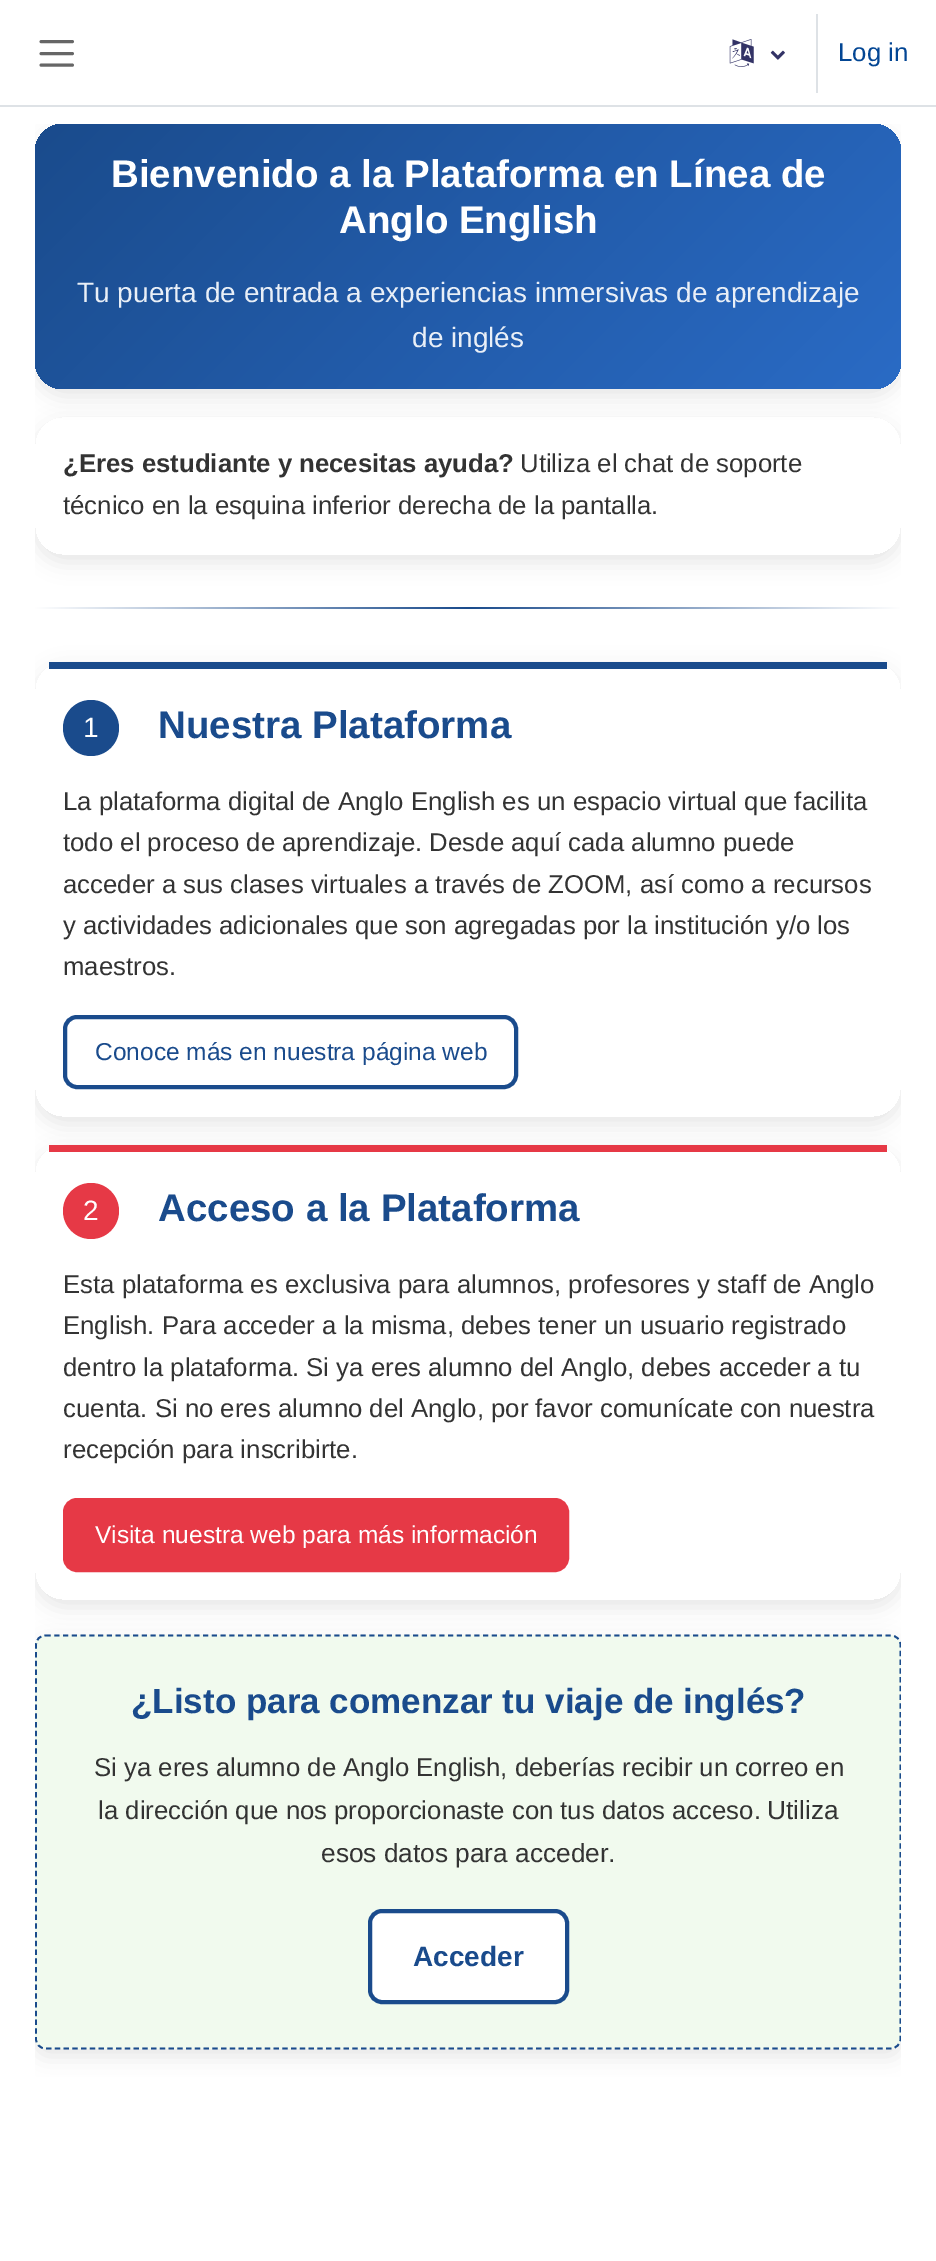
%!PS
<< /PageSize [936 2261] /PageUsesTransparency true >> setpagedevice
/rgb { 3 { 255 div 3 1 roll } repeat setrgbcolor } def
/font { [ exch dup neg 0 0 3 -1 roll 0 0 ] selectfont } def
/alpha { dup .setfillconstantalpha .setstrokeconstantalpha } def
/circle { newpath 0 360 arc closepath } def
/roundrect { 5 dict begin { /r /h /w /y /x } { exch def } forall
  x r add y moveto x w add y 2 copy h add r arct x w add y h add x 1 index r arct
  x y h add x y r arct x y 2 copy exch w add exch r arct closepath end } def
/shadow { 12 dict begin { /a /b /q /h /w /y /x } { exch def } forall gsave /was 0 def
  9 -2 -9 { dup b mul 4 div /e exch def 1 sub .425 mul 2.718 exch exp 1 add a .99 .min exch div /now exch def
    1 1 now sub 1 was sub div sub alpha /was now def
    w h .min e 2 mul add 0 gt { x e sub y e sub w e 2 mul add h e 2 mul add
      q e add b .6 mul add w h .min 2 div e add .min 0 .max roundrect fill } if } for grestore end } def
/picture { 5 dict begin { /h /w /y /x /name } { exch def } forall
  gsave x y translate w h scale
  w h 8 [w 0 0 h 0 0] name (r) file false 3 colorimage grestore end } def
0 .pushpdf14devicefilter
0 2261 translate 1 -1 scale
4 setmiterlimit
255 255 255 rgb
0 0 936 2261 rectfill
gsave
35 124 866 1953 rectclip
0 0 0 rgb
35 131 866 265 28 10.5 0.1 shadow
grestore
222 226 230 rgb
0 105 936 2 rectfill
102 102 102 rgb
2.9 setlinewidth
1 setlinecap
41 41.5 moveto 72.5 41.5 lineto 41 53.5 moveto 72.5 53.5 lineto 41 65 moveto 72.5 65 lineto stroke
(img/1.rgb) 729 39 25 28 picture
(img/2.rgb) 770 50 15 10 picture
222 226 230 rgb
816 14 2 79 rectfill
gsave 35 124 866 265 28 roundrect clip newpath
<< /ShadingType 2 /ColorSpace /DeviceRGB /Coords [185 -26 751 539] /Extend [true true] /Function << /FunctionType 2 /Domain [0 1] /C0 [0.102 0.294 0.549] /C1 [0.165 0.42 0.773] /N 1 >> >> shfill grestore
gsave
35 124 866 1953 rectclip
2 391 moveto 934 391 lineto 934 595 lineto 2 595 lineto closepath 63 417 moveto 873 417 lineto 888.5 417 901 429.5 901 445 curveto 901 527 lineto 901 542.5 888.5 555 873 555 curveto 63 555 lineto 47.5 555 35 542.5 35 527 curveto 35 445 lineto 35 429.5 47.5 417 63 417 curveto closepath eoclip newpath
0 0 0 rgb
35 424 866 138 28 10.5 0.1 shadow
grestore
gsave 35 607 moveto 901 607 lineto 901 609 lineto 35 609 lineto closepath clip newpath
<< /ShadingType 2 /ColorSpace /DeviceRGB /Coords [35 608 901 608] /Extend [true true] /Function << /FunctionType 3 /Domain [0 1] /Functions [<< /FunctionType 2 /Domain [0 1] /C0 [1 1 1] /C1 [0.102 0.294 0.549] /N 1 >> << /FunctionType 2 /Domain [0 1] /C0 [0.102 0.294 0.549] /C1 [1 1 1] /N 1 >>] /Bounds [0.5] /Encode [0 1 0 1] >> >> shfill grestore
gsave
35 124 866 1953 rectclip
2 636 moveto 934 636 lineto 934 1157 lineto 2 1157 lineto closepath 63 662 moveto 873 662 lineto 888.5 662 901 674.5 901 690 curveto 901 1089 lineto 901 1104.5 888.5 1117 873 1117 curveto 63 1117 lineto 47.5 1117 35 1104.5 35 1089 curveto 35 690 lineto 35 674.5 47.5 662 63 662 curveto closepath eoclip newpath
0 0 0 rgb
35 669 866 455 28 10.5 0.1 shadow
grestore
26 75 140 rgb
49 662 838 7 rectfill
91 728 28 circle fill
4 setlinewidth
0 setlinecap
65 1017 451 70 12 roundrect stroke
gsave
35 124 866 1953 rectclip
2 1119 moveto 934 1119 lineto 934 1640 lineto 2 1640 lineto closepath 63 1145 moveto 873 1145 lineto 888.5 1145 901 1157.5 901 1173 curveto 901 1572 lineto 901 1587.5 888.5 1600 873 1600 curveto 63 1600 lineto 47.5 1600 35 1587.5 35 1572 curveto 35 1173 lineto 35 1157.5 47.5 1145 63 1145 curveto closepath eoclip newpath
0 0 0 rgb
35 1152 866 455 28 10.5 0.1 shadow
grestore
230 57 70 rgb
49 1145 838 7 rectfill
91 1211 28 circle fill
65 1500 502 70 12 roundrect gsave fill grestore
stroke
gsave
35 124 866 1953 rectclip
0 0 0 rgb
35 1642 866 414 11 10.5 0.1 shadow
grestore
241 250 238 rgb
35 1635 866 414 11 roundrect fill
gsave
35 124 866 1953 rectclip
26 75 140 rgb
1.8 setlinewidth
[5.25 3.5] 0 setdash
45.5 1635.5 moveto 891 1635.5 lineto 896 1635.5 900.5 1639.5 900.5 1645 curveto 900.5 2039 lineto 900.5 2044 896 2048.5 891 2048.5 curveto 45.5 2048.5 lineto 40 2048.5 36 2044 36 2039 curveto 36 1645 lineto 36 1639.5 40 1635.5 45.5 1635.5 curveto closepath stroke
grestore
255 255 255 rgb
370 1911 197 91 12 roundrect gsave fill grestore
26 75 140 rgb
stroke
/LiberationSans-Regular 25.75 font
3 70 148 rgb
838 61 moveto (Log in) show
/LiberationSans-Bold 38.5 font
255 255 255 rgb
111 187 moveto (Bienvenido a la Plataforma en Línea de) show
339 233 moveto (Anglo English) show
/LiberationSans-Regular 28 font
233 239 247 rgb
77 302 moveto (Tu puerta de entrada a experiencias inmersivas de aprendizaje) show
412 347 moveto (de inglés) show
/LiberationSans-Bold 25.75 font
51 51 51 rgb
63 472 moveto (¿Eres estudiante y necesitas ayuda?) show
/LiberationSans-Regular 25.75 font
520 472 moveto (Utiliza el chat de soporte) show
63 514 moveto (técnico en la esquina inferior derecha de la pantalla.) show
/LiberationSans-Regular 28 font
255 255 255 rgb
83 737 moveto (1) show
/LiberationSans-Bold 38.5 font
26 75 140 rgb
158 738 moveto (Nuestra Plataforma) show
/LiberationSans-Regular 25.75 font
51 51 51 rgb
[
  [(La plataforma digital de Anglo English es un espacio virtual que facilita) 63 810]
  [(todo el proceso de aprendizaje. Desde aquí cada alumno puede) 63 851]
  [(acceder a sus clases virtuales a través de ZOOM, así como a recursos) 63 893]
  [(y actividades adicionales que son agregadas por la institución y/o los) 63 934]
  [(maestros.) 63 975]
] { aload pop moveto show } forall
/LiberationSans-Regular 24.5 font
26 75 140 rgb
95 1060 moveto (Conoce más en nuestra página web) show
/LiberationSans-Regular 28 font
255 255 255 rgb
83 1220 moveto (2) show
/LiberationSans-Bold 38.5 font
26 75 140 rgb
158 1221 moveto (Acceso a la Plataforma) show
/LiberationSans-Regular 25.75 font
51 51 51 rgb
[
  [(Esta plataforma es exclusiva para alumnos, profesores y staff de Anglo) 63 1293]
  [(English. Para acceder a la misma, debes tener un usuario registrado) 63 1334]
  [(dentro la plataforma. Si ya eres alumno del Anglo, debes acceder a tu) 63 1376]
  [(cuenta. Si no eres alumno del Anglo, por favor comunícate con nuestra) 63 1417]
  [(recepción para inscribirte.) 63 1458]
] { aload pop moveto show } forall
/LiberationSans-Regular 24.5 font
255 255 255 rgb
95 1543 moveto (Visita nuestra web para más información) show
/LiberationSans-Bold 35 font
26 75 140 rgb
131 1713 moveto (¿Listo para comenzar tu viaje de inglés?) show
/LiberationSans-Regular 25.75 font
51 51 51 rgb
94 1776 moveto (Si ya eres alumno de Anglo English, deberías recibir un correo en) show
98 1819 moveto (la dirección que nos proporcionaste con tus datos acceso.) show
/LiberationSans-Regular 26.25 font
767 1819 moveto (Utiliza) show
321 1862 moveto (esos datos para acceder.) show
/LiberationSans-Bold 28 font
26 75 140 rgb
413 1966 moveto (Acceder) show
.poppdf14devicefilter showpage
